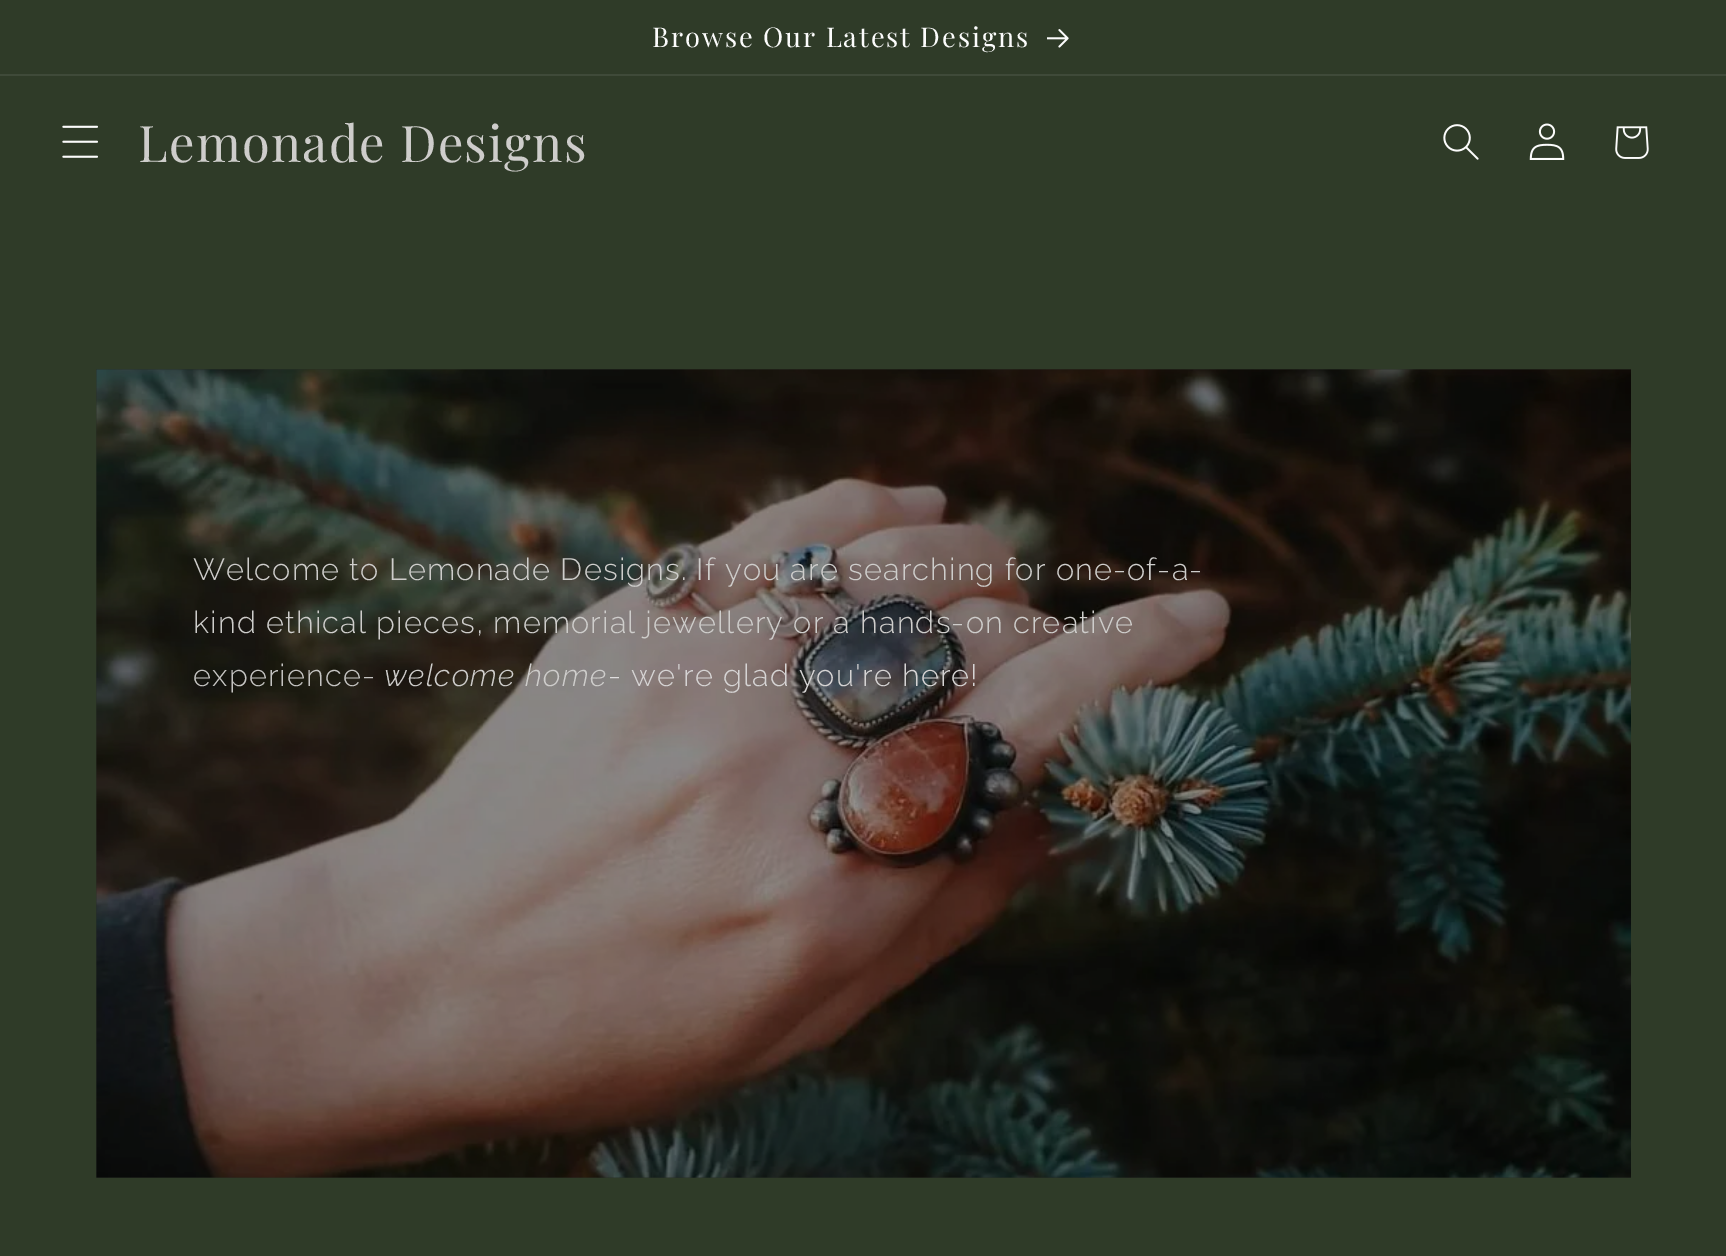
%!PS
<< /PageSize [1726 1256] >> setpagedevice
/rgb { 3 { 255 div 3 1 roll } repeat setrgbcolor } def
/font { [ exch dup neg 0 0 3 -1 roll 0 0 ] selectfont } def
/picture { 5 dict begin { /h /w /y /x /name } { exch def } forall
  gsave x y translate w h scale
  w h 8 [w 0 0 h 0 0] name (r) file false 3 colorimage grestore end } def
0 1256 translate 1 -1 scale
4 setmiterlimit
47 59 40 rgb
0 0 1726 1256 rectfill
63 74 57 rgb
0 74 1726 2 rectfill
(img/1.rgb) 1047 29 22 19 picture
(img/2.rgb) 62 125 36 33 picture
(img/3.rgb) 1443 124 36 36 picture
(img/4.rgb) 1529 123 36 37 picture
(img/5.rgb) 1615 126 34 33 picture
41 47 37 rgb
96 369 1535 809 rectfill
(img/6.rgb) 96 369 1535 809 picture
/PlayfairDisplay-Regular 27.25 font
252 252 252 rgb
652 47 moveto 1.9 0 (Browse Our Latest Designs) ashow
/PlayfairDisplay-Regular 50.5 font
206 205 203 rgb
138 162 moveto 1.25 0 (Lemonade Designs) ashow
/Raleway-Light 30.8 font
193 580 moveto 1.15 0 (Welcome to Lemonade Designs. If you are searching for one-of-a-) ashow
193 633 moveto 1.15 0 (kind ethical pieces, memorial jewellery or a hands-on creative) ashow
196 195 193 rgb
193 686 moveto 1.15 0 (experience-) ashow
/Raleway-LightItalic 30.8 font
206 205 203 rgb
384 686 moveto 1.15 0 (welcome home) ashow
/Raleway-Light 30.8 font
223 222 222 rgb
608 686 moveto 1.15 0 (-) ashow
214 212 212 rgb
631 686 moveto 1.15 0 (we're glad you're here!) ashow
showpage
